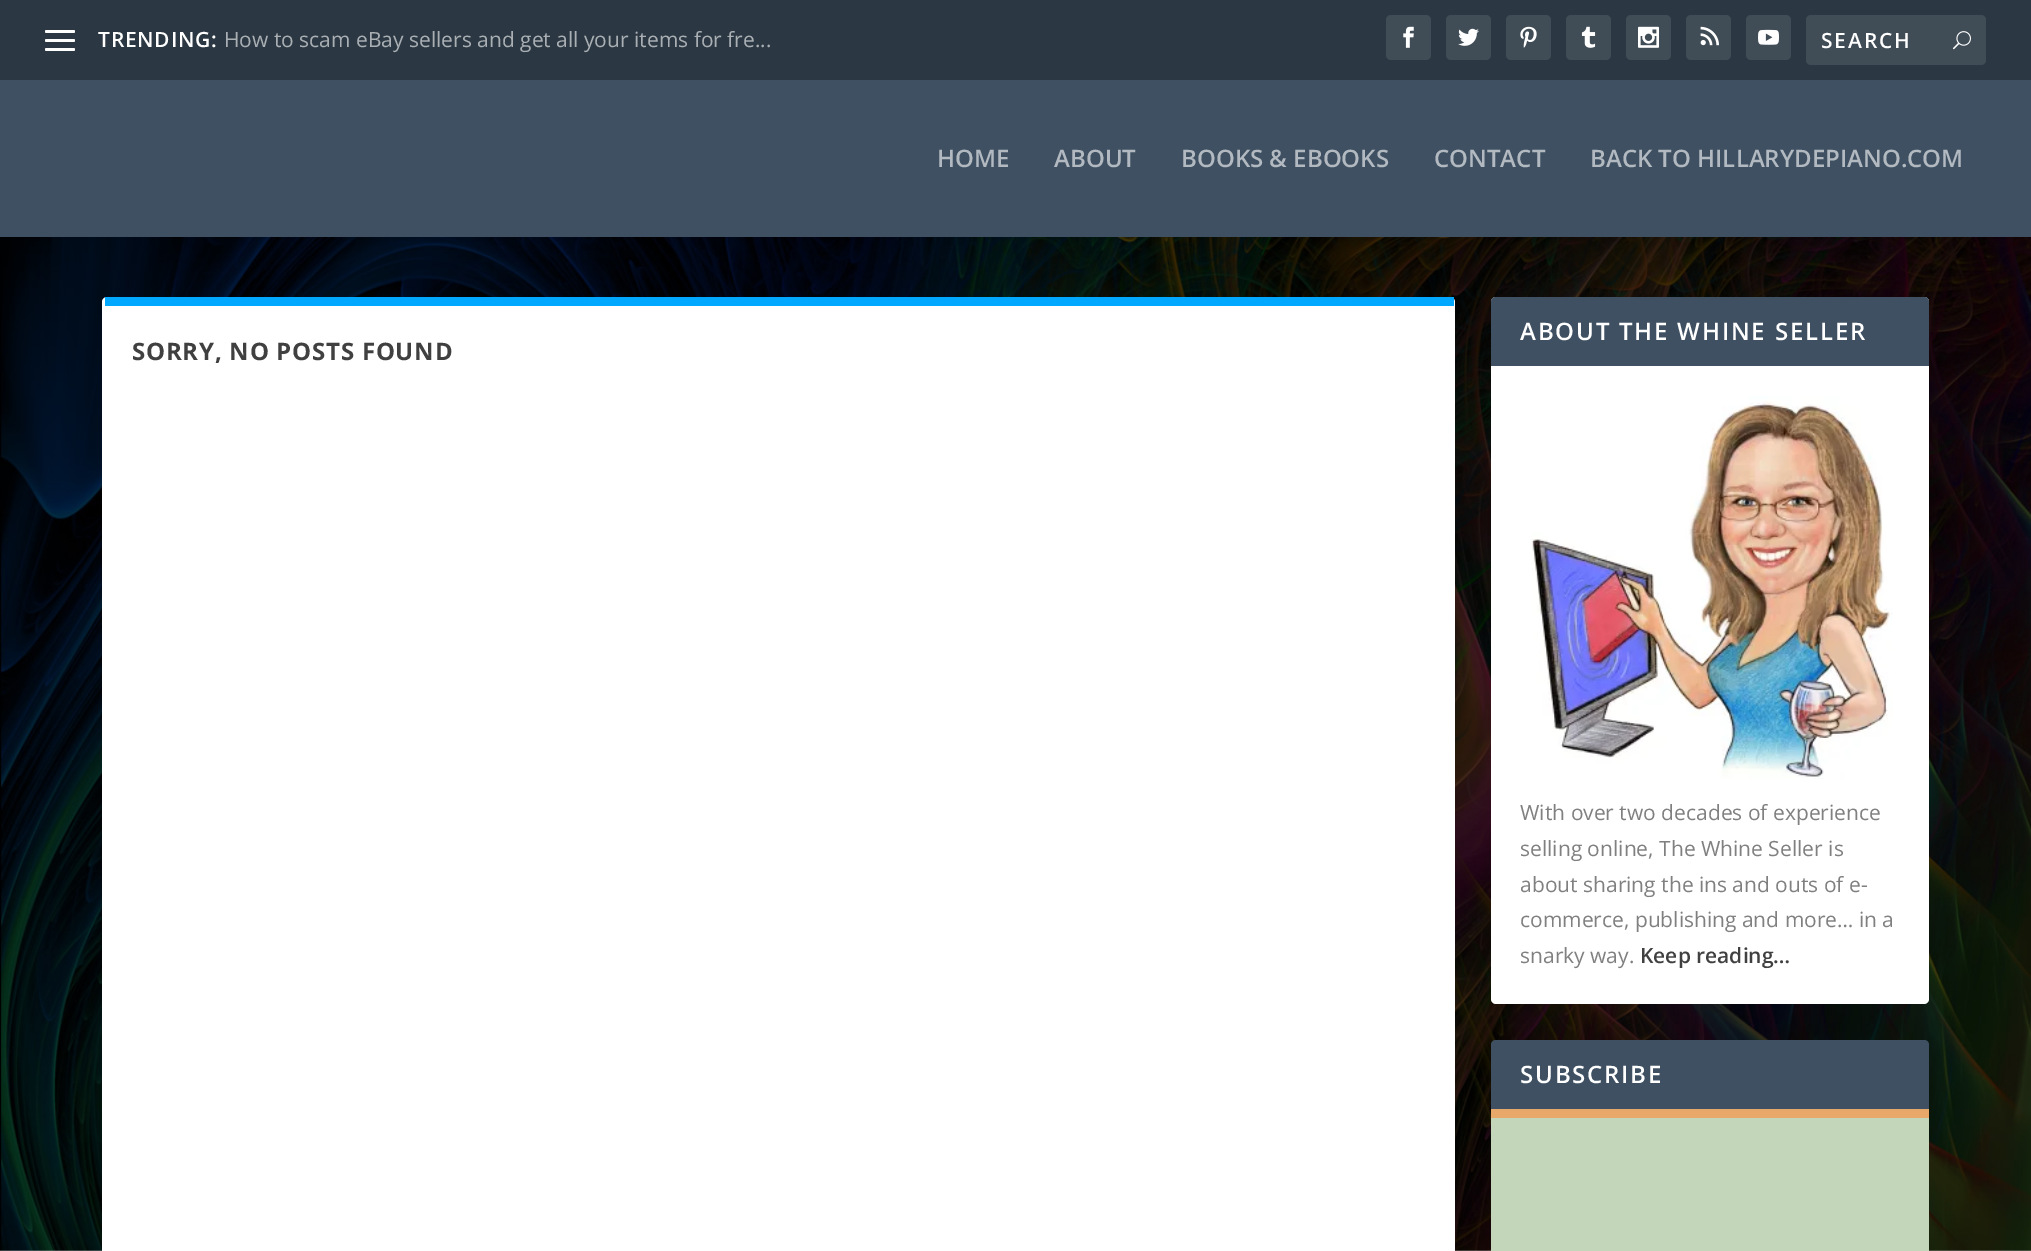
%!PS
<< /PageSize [2031 1251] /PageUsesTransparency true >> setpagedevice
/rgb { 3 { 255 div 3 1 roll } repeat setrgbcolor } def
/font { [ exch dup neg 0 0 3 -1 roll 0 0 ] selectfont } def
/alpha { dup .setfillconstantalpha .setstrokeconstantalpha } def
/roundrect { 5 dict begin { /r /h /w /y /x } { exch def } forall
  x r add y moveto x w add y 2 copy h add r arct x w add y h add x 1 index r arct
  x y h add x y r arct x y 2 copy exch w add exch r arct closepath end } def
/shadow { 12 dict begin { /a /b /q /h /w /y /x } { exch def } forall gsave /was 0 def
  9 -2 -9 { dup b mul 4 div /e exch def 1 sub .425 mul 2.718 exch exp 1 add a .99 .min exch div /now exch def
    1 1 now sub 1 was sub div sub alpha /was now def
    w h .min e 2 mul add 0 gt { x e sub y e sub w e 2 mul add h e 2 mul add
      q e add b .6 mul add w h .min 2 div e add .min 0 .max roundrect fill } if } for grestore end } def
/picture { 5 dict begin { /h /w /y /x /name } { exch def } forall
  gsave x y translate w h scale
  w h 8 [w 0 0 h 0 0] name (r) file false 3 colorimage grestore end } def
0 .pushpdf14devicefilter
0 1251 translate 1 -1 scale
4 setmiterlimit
255 255 255 rgb
0 0 2031 1251 rectfill
(img/1.rgb) 0 237 2031 1014 picture
43 56 67 rgb
0 0 2031 80 rectfill
255 255 255 rgb
45 30 30 3 1.5 roundrect fill
45 39 30 3 1.5 roundrect fill
45 48 30 3 1.5 roundrect fill
64 76 86 rgb
1386 15 45 45 5 roundrect fill
(img/2.rgb) 1403 26 11 22 picture
1446 15 45 45 5 roundrect fill
(img/3.rgb) 1458 28 21 18 picture
1506 15 45 45 5 roundrect fill
(img/4.rgb) 1520 26 17 22 picture
1566 15 45 45 5 roundrect fill
(img/5.rgb) 1581 26 15 22 picture
1626 15 45 45 5 roundrect fill
(img/6.rgb) 1638 26 21 22 picture
1686 15 45 45 5 roundrect fill
(img/7.rgb) 1700 26 19 20 picture
1746 15 45 45 5 roundrect fill
(img/8.rgb) 1758 29 21 16 picture
1806 15 180 50 5 roundrect fill
(img/9.rgb) 1953 31 18 19 picture
62 80 98 rgb
0 80 2031 157 rectfill
0 0 0 rgb
102 299 1353 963 5 2 0.1 shadow
255 255 255 rgb
102 297 1353 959 5 roundrect fill
0 168 255 rgb
105 297 1349 9 rectfill
255 255 255 rgb
1491 297 438 707 5 roundrect fill
62 80 98 rgb
1496 297 moveto 1924 297 lineto 1927 297 1929 299 1929 302 curveto 1929 366 lineto 1491 366 lineto 1491 302 lineto 1491 299 1493 297 1496 297 curveto closepath fill
(img/10.rgb) 1531 396 362 383 picture
0 0 0 rgb
1491 1041 438 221 5 2 0.1 shadow
62 80 98 rgb
1496 1040 moveto 1924 1040 lineto 1927 1040 1929 1042 1929 1045 curveto 1929 1109 lineto 1491 1109 lineto 1491 1045 lineto 1491 1042 1493 1040 1496 1040 curveto closepath fill
232 168 105 rgb
1491 1109 438 9 rectfill
196 214 186 rgb
1491 1118 438 133 rectfill
/OpenSans-SemiBold 21 font
255 255 255 rgb
98 47 moveto 0.75 0 (TRENDING:) ashow
/OpenSans-Regular 21 font
170 175 180 rgb
224 47 moveto (How to scam eBay sellers and get all your items for fre...) show
/OpenSans-SemiBold 21 font
255 255 255 rgb
1821 48 moveto 1.8 0 (SEARCH) ashow
/OpenSans-SemiBold 24 font
178 185 192 rgb
[
  [(HOME) 937 167]
  [(ABOUT) 1054 167]
  [(BOOKS & EBOOKS) 1181 167]
  [(CONTACT) 1434 167]
  [(BACK TO HILLARYDEPIANO.COM) 1590 167]
] { aload pop moveto show } forall
/OpenSans-Bold 24 font
64 64 64 rgb
132 360 moveto 0.75 0 (SORRY, NO POSTS FOUND) ashow
/OpenSans-SemiBold 24 font
255 255 255 rgb
1520 340 moveto 1.8 0 (ABOUT THE WHINE SELLER) ashow
/OpenSans-Regular 21 font
128 128 128 rgb
[
  [(With over two decades of experience) 1520 820]
  [(selling online, The Whine Seller is) 1520 856]
  [(about sharing the ins and outs of e-) 1520 892]
  [(commerce, publishing and more… in a) 1520 927]
  [(snarky way.) 1520 963]
] { aload pop moveto show } forall
/OpenSans-SemiBold 21 font
64 64 64 rgb
1640 963 moveto (Keep reading…) show
/OpenSans-SemiBold 24 font
255 255 255 rgb
1520 1083 moveto 1.8 0 (SUBSCRIBE) ashow
.poppdf14devicefilter showpage
